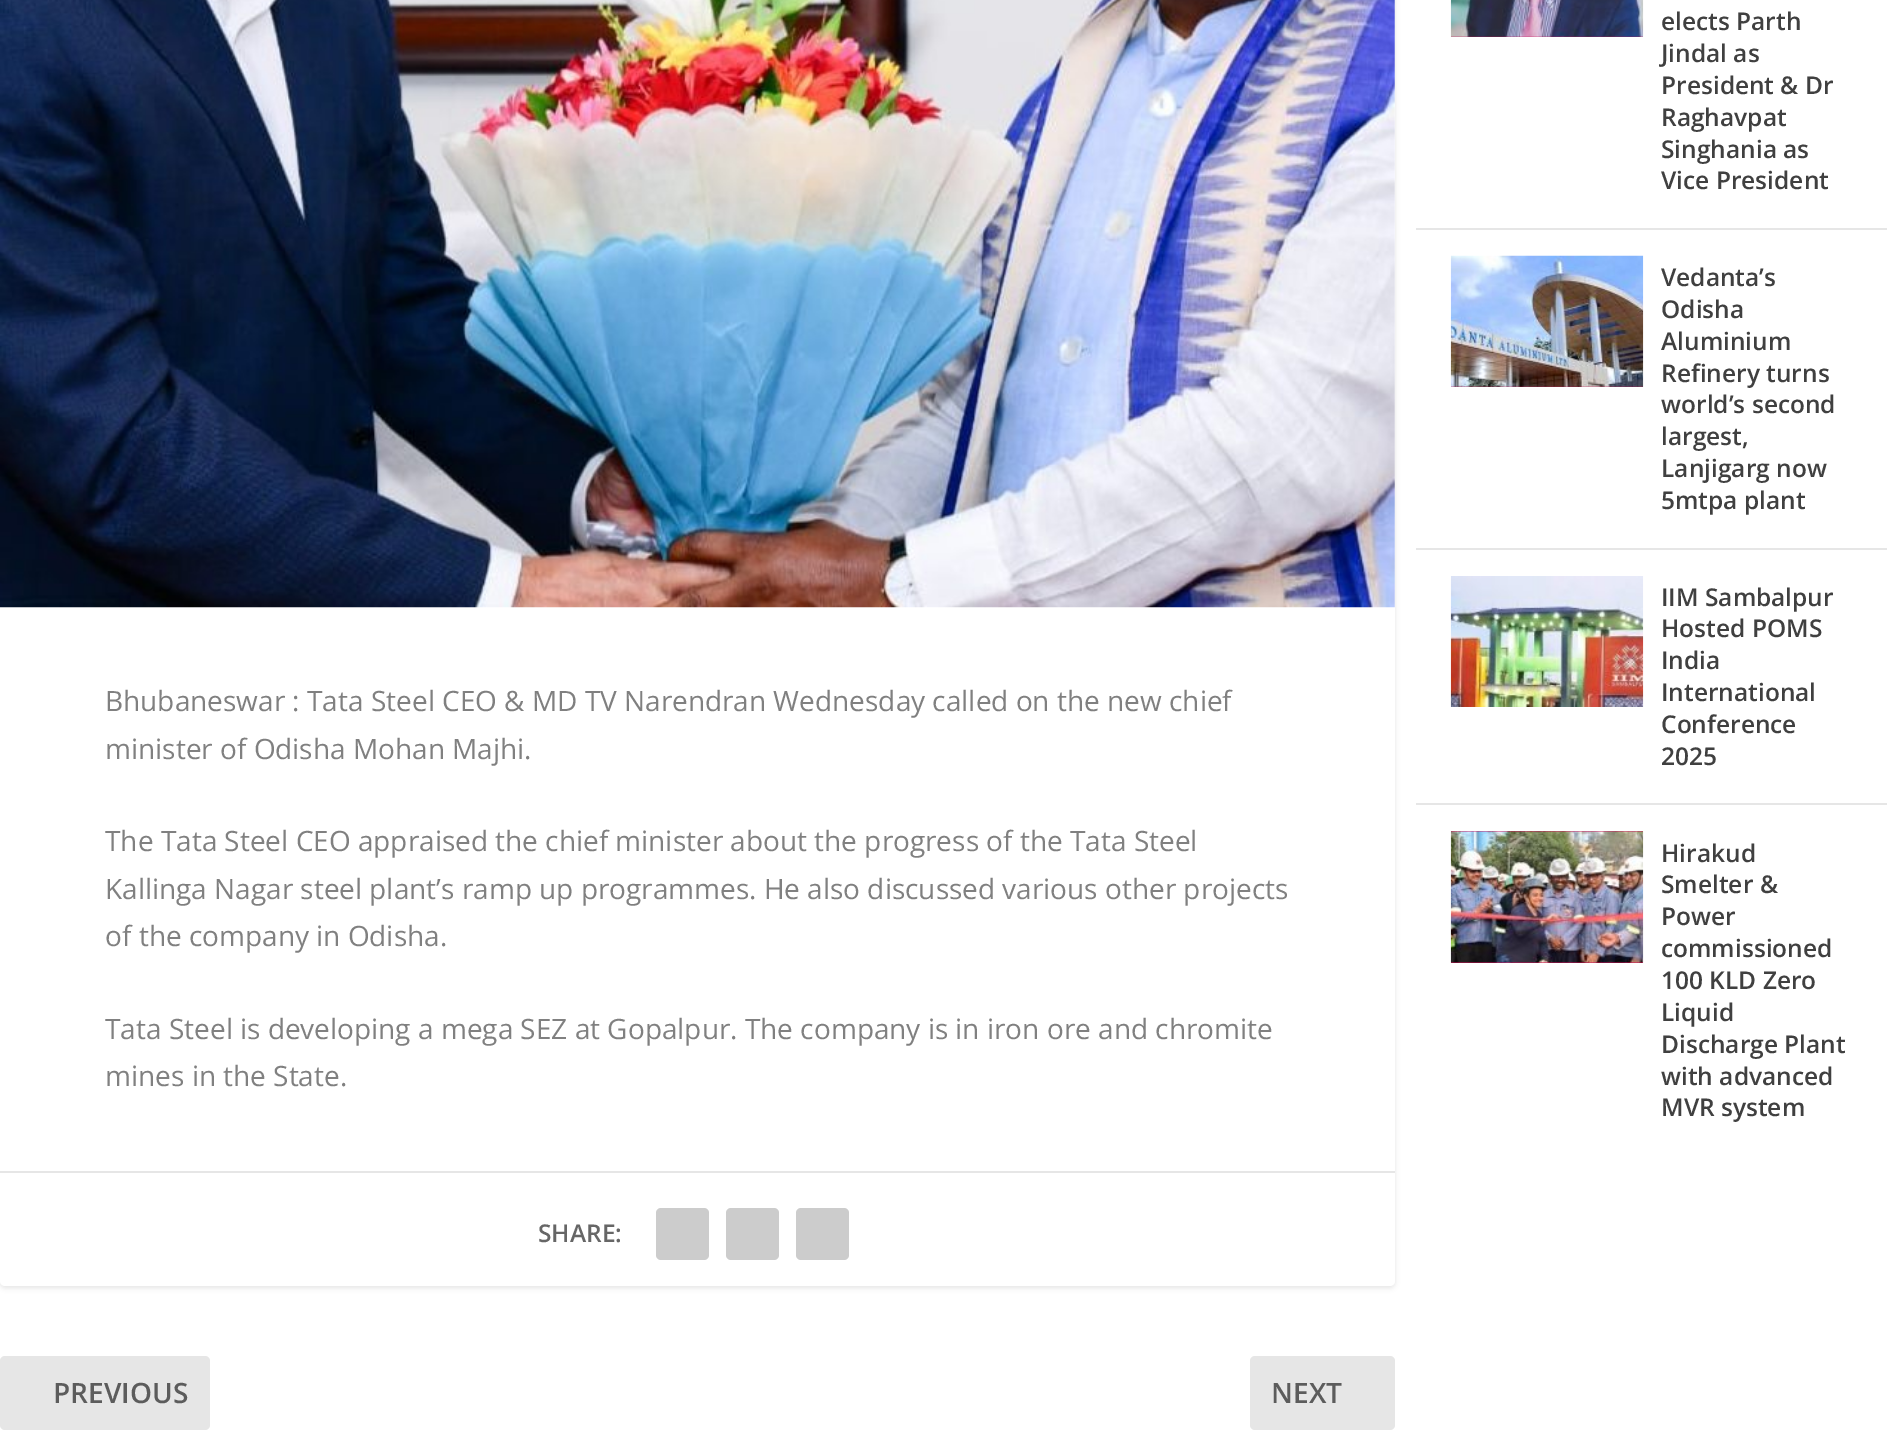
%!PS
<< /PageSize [1887 1456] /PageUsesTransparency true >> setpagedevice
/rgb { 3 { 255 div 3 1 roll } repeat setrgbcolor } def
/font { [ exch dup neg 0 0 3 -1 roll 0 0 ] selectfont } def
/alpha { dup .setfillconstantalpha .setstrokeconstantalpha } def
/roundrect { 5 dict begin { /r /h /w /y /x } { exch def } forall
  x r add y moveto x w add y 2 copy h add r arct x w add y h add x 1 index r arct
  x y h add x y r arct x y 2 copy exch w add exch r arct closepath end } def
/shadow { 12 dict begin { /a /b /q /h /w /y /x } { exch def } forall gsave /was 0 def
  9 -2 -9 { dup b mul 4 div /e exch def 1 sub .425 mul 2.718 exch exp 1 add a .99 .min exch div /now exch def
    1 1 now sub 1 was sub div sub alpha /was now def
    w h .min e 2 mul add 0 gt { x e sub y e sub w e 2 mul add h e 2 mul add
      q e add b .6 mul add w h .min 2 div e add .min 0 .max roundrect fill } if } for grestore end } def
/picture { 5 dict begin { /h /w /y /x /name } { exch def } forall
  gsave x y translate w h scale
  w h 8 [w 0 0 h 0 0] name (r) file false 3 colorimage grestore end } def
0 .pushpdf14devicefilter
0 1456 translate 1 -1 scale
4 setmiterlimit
255 255 255 rgb
0 0 1887 1456 rectfill
0 0 0 rgb
0 -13 1395 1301 5 2.5 0.1 shadow
255 255 255 rgb
0 -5 1395 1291 5 roundrect fill
(img/1.rgb) 0 0 1395 608 picture
230 230 230 rgb
0 1171 1395 2 rectfill
204 204 204 rgb
656 1208 53 52 5 roundrect fill
726 1208 53 52 5 roundrect fill
796 1208 53 52 5 roundrect fill
230 230 230 rgb
0 1356 210 74 5 roundrect fill
1250 1356 145 74 5 roundrect fill
1416 228 471 2 rectfill
(img/2.rgb) 1450 0 194 37 picture
1416 548 471 2 rectfill
(img/3.rgb) 1450 255 194 132 picture
1416 803 471 2 rectfill
(img/4.rgb) 1450 576 194 131 picture
208 18 87 rgb
1451 831 192 132 rectfill
(img/5.rgb) 1450 831 194 132 picture
/OpenSans-Regular 28 font
128 128 128 rgb
[
  [(Bhubaneswar : Tata Steel CEO & MD TV Narendran Wednesday called on the new chief) 105 711]
  [(minister of Odisha Mohan Majhi.) 105 759]
  [(The Tata Steel CEO appraised the chief minister about the progress of the Tata Steel) 105 851]
  [(Kallinga Nagar steel plant’s ramp up programmes. He also discussed various other projects) 105 899]
  [(of the company in Odisha.) 105 946]
  [(Tata Steel is developing a mega SEZ at Gopalpur. The company is in iron ore and chromite) 105 1039]
  [(mines in the State.) 105 1086]
] { aload pop moveto show } forall
/OpenSans-SemiBold 24.5 font
102 102 102 rgb
538 1242 moveto (SHARE:) show
/OpenSans-SemiBold 28 font
92 92 92 rgb
53 1403 moveto (PREVIOUS) show
1271 1403 moveto (NEXT) show
/OpenSans-SemiBold 24.5 font
64 64 64 rgb
[
  [(elects Parth) 1661 30]
  [(Jindal as) 1661 62]
  [(President & Dr) 1661 94]
  [(Raghavpat) 1661 126]
  [(Singhania as) 1661 158]
  [(Vice President) 1661 189]
  [(Vedanta’s) 1661 286]
  [(Odisha) 1661 318]
  [(Aluminium) 1661 350]
  [(Refinery turns) 1661 382]
  [(world’s second) 1661 413]
  [(largest,) 1661 445]
  [(Lanjigarg now) 1661 477]
  [(5mtpa plant) 1661 509]
  [(IIM Sambalpur) 1661 606]
  [(Hosted POMS) 1661 637]
  [(India) 1661 669]
  [(International) 1661 701]
  [(Conference) 1661 733]
  [(2025) 1661 765]
  [(Hirakud) 1661 862]
  [(Smelter &) 1661 893]
  [(Power) 1661 925]
  [(commissioned) 1661 957]
  [(100 KLD Zero) 1661 989]
  [(Liquid) 1661 1021]
  [(Discharge Plant) 1661 1053]
  [(with advanced) 1661 1085]
  [(MVR system) 1661 1116]
] { aload pop moveto show } forall
.poppdf14devicefilter showpage
